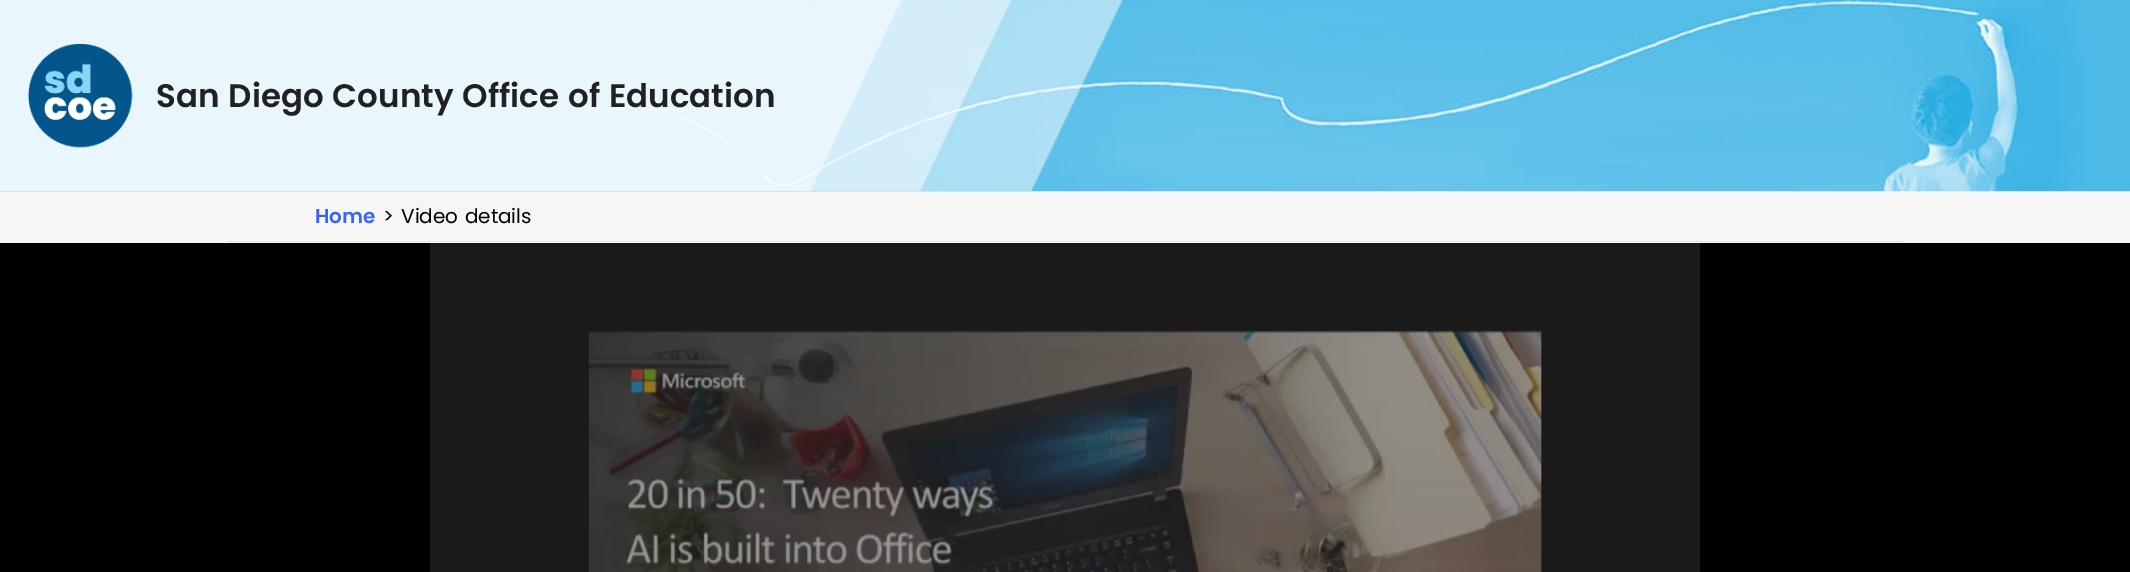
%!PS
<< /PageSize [2130 572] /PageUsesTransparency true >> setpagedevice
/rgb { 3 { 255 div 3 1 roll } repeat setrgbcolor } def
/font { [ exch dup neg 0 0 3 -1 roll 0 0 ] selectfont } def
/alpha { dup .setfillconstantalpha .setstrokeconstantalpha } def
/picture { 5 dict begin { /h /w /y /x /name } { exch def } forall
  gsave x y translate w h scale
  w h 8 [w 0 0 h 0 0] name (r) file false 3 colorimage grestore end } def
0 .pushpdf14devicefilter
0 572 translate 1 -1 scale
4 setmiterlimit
246 246 246 rgb
0 0 2130 572 rectfill
(img/1.rgb) 0 0 2130 192 picture
0.88 alpha
255 255 255 rgb
0 0 810 191 rectfill
1 alpha
(img/2.rgb) 28 43 105 105 picture
(img/3.rgb) 810 0 313 191 picture
[
  [228 241 1675 1 229 229 229]
  [0 243 2130 329 0 0 0]
  [430 243 1270 329 26 26 26]
] { aload pop rgb rectfill } forall
(img/4.rgb) 588 327 954 245 picture
/Poppins-SemiBold 32.5 font
33 33 33 rgb
156 107 moveto 1.25 0 32 (San Diego County Office of Education) widthshow
/Poppins-SemiBold 20 font
54 101 243 rgb
315 223 moveto (Home) show
/Poppins-Regular 20 font
0 0 0 rgb
383 223 moveto (>) show
401 223 moveto 1.25 0 32 (Video details) widthshow
.poppdf14devicefilter showpage
